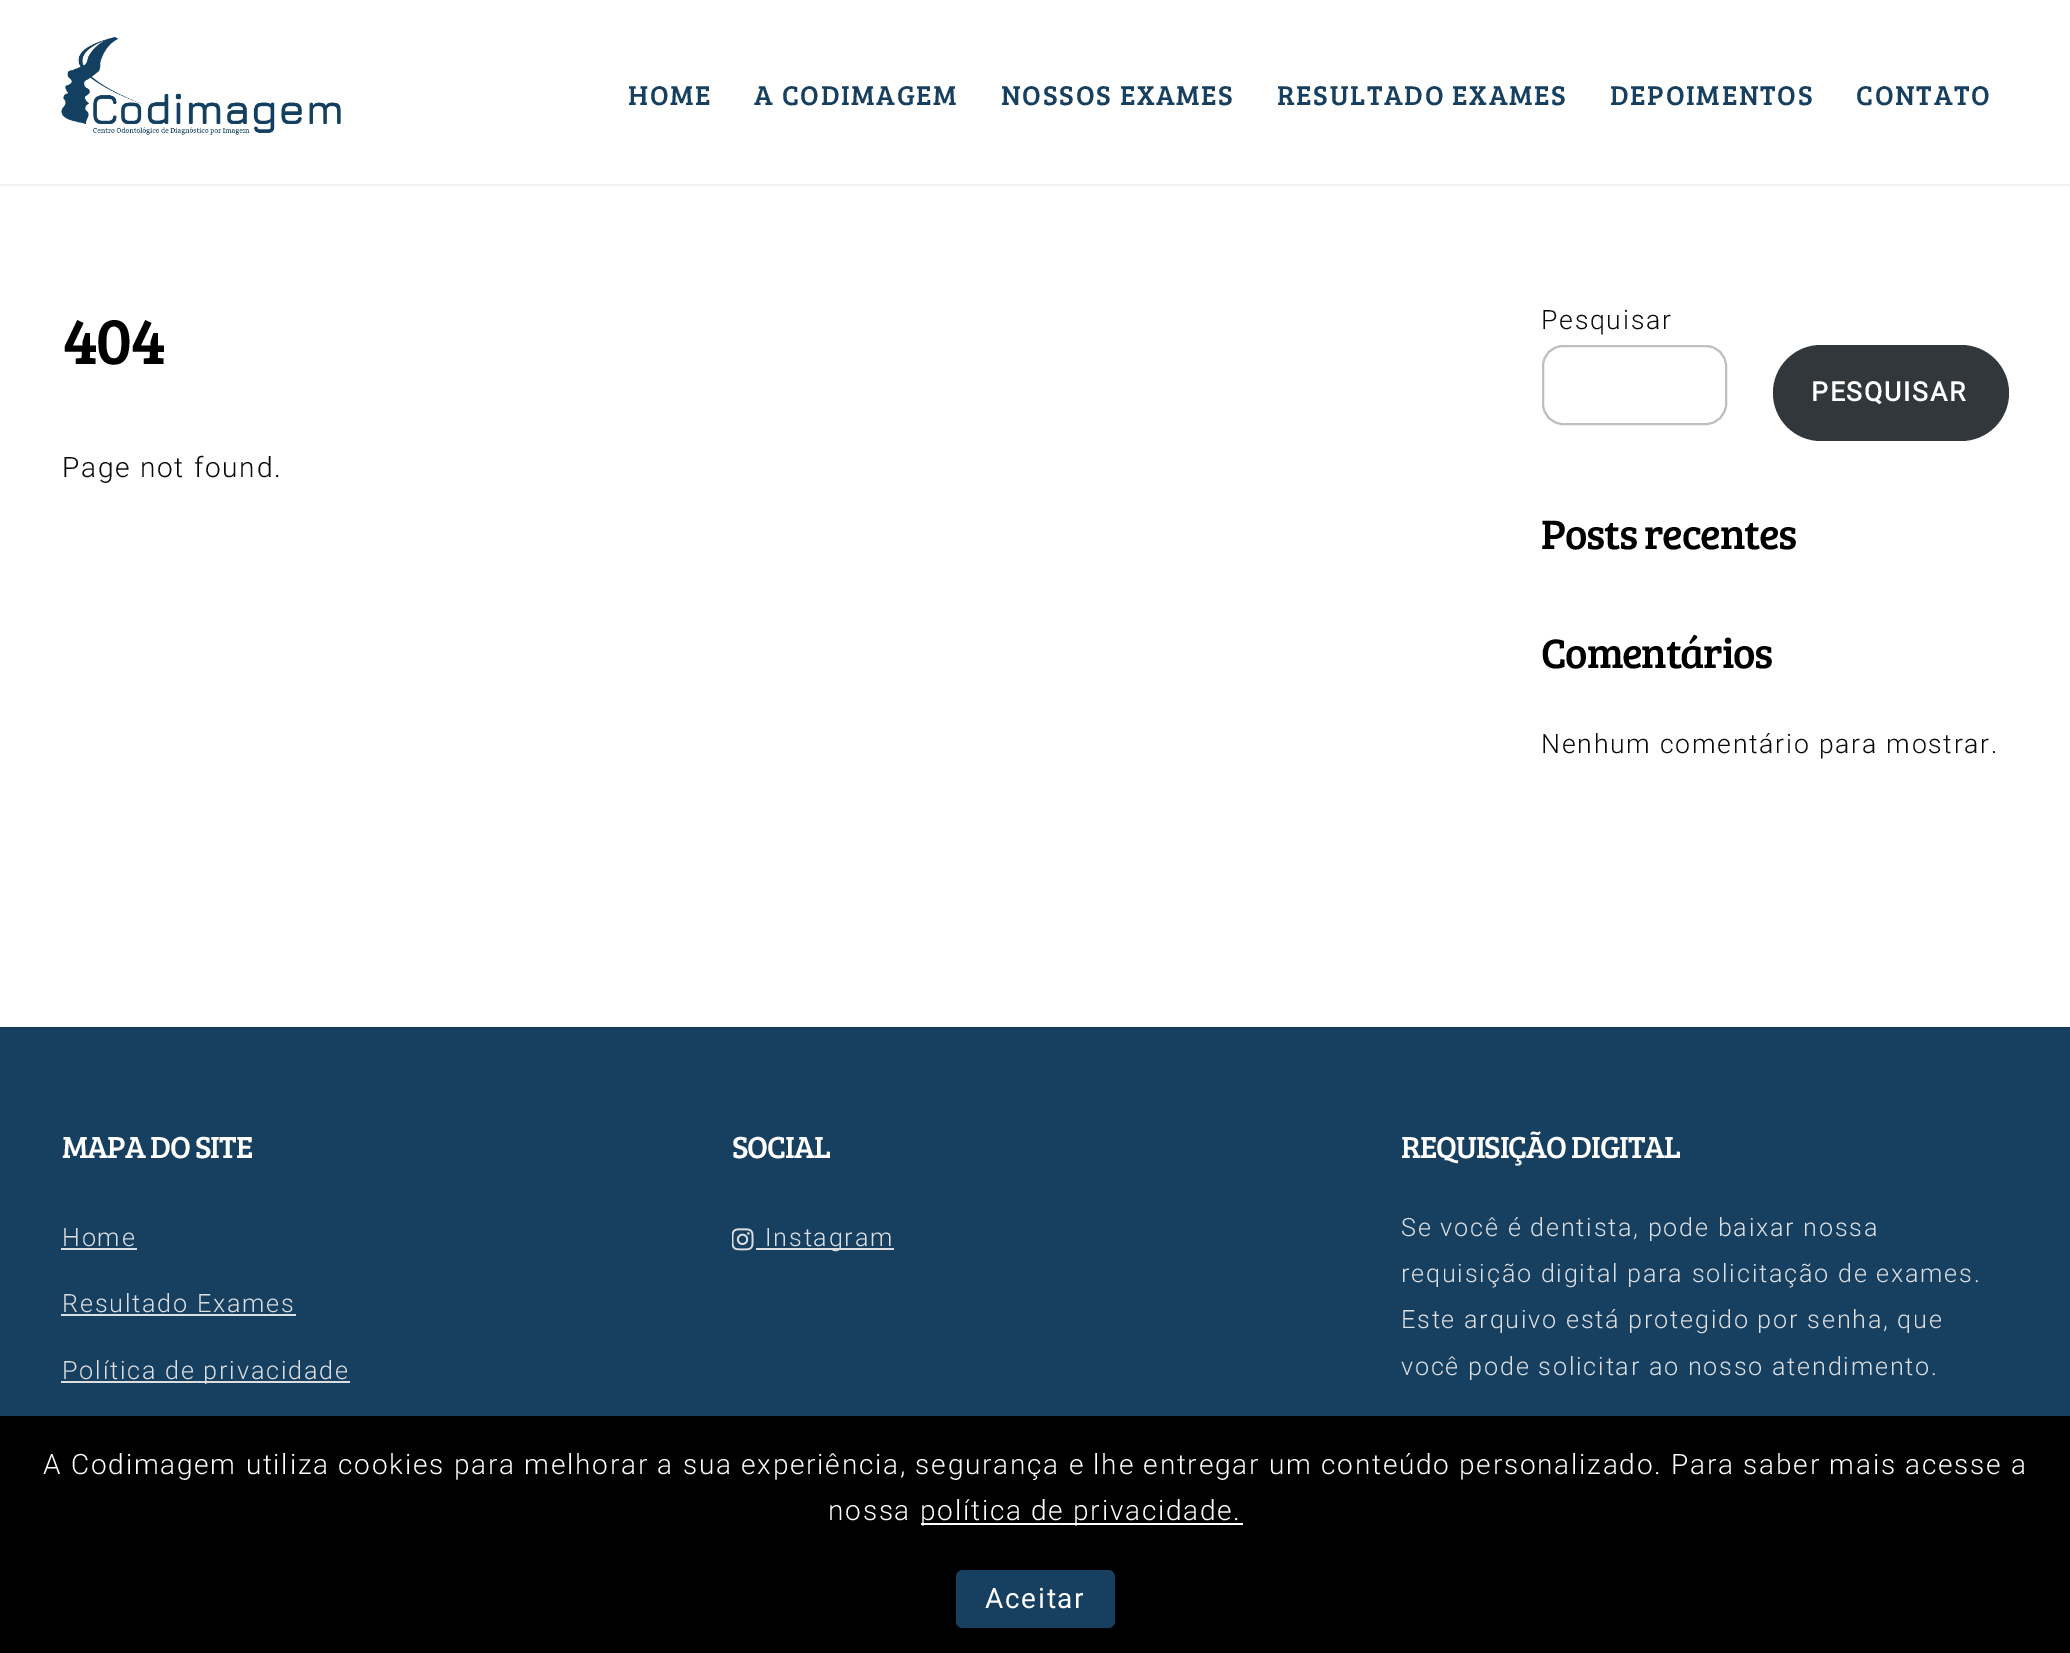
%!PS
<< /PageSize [2070 1653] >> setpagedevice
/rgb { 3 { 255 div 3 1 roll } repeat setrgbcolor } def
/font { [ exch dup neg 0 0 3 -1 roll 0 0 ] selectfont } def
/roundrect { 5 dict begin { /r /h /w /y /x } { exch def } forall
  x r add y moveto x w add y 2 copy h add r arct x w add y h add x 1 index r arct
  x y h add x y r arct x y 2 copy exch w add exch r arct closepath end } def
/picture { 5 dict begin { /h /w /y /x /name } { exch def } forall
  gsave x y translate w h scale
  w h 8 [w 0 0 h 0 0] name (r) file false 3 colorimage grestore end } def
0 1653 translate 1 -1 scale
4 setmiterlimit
255 255 255 rgb
0 0 2070 1653 rectfill
242 242 242 rgb
0 184 2070 2 rectfill
(img/1.rgb) 61 36 280 99 picture
191 191 191 rgb
2 setlinewidth
1543 346 183 78 20 roundrect stroke
50 55 60 rgb
1773 345 236 96 48 roundrect fill
[
  [0 1029 2070 387 23 63 95]
  [0 1027 2070 2 22 60 90]
  [61 1248 76 2 219 223 226]
  [61 1314 235 2 219 223 226]
  [61 1381 289 2 219 223 226]
] { aload pop rgb rectfill } forall
(img/2.rgb) 732 1228 22 23 picture
[
  [756 1248 138 2 219 223 226]
  [0 1416 2070 237 0 0 0]
  [921 1523 322 2 255 255 255]
] { aload pop rgb rectfill } forall
23 63 95 rgb
956 1570 159 58 7 roundrect fill
/BreeSerif-Regular 28 font
628 105 moveto 1.75 0 (HOME) ashow
754 105 moveto 1.75 0 (A CODIMAGEM) ashow
1001 105 moveto 1.75 0 (NOSSOS EXAMES) ashow
1277 105 moveto 1.75 0 (RESULTADO EXAMES) ashow
1610 105 moveto 1.75 0 (DEPOIMENTOS) ashow
1856 105 moveto 1.75 0 (CONTATO) ashow
/BreeSerif-Regular 67 font
0 0 0 rgb
62 364 moveto -2 0 (404) ashow
/Roboto-Light 28 font
10 10 10 rgb
62 477 moveto 1.75 0 (Page not found.) ashow
/Roboto-Light 26.6 font
1541 329 moveto 1.75 0 (Pesquisar) ashow
/Roboto-Bold 26.6 font
255 255 255 rgb
1811 401 moveto 1.75 0 (PESQUISAR) ashow
/BreeSerif-Regular 42.5 font
0 0 0 rgb
1541 549 moveto -1.25 0 (Posts recentes) ashow
1541 668 moveto -1.25 0 (Comentários) ashow
/Roboto-Light 26.6 font
10 10 10 rgb
1541 753 moveto 1.75 0 (Nenhum comentário para mostrar.) ashow
/BreeSerif-Regular 31.5 font
255 255 255 rgb
62 1158 moveto -1 0 (MAPA DO SITE) ashow
/Roboto-Light 25.2 font
219 223 226 rgb
62 1246 moveto 1.75 0 (Home) ashow
62 1312 moveto 1.75 0 (Resultado Exames) ashow
62 1379 moveto 1.75 0 (Política de privacidade) ashow
/BreeSerif-Regular 31.5 font
255 255 255 rgb
732 1158 moveto -1 0 (SOCIAL) ashow
/Roboto-Light 25.2 font
219 223 226 rgb
765 1246 moveto 1.75 0 (Instagram) ashow
/BreeSerif-Regular 31.5 font
255 255 255 rgb
1401 1158 moveto -1 0 (REQUISIÇÃO DIGITAL) ashow
/Roboto-Light 25.2 font
219 223 226 rgb
1401 1236 moveto 1.75 0 (Se você é dentista, pode baixar nossa) ashow
1401 1282 moveto 1.75 0 (requisição digital para solicitação de exames.) ashow
1401 1328 moveto 1.75 0 (Este arquivo está protegido por senha, que) ashow
1401 1375 moveto 1.75 0 (você pode solicitar ao nosso atendimento.) ashow
/Roboto-Light 28 font
255 255 255 rgb
43 1474 moveto 1.75 0 (A Codimagem utiliza cookies para melhorar a sua experiência, segurança e lhe entregar um conteúdo personalizado. Para saber mais acesse a) ashow
828 1520 moveto 1.75 0 (nossa) ashow
920 1520 moveto 1.75 0 (política de privacidade.) ashow
/Roboto-Regular 28 font
985 1608 moveto 1.75 0 (Aceitar) ashow
showpage
